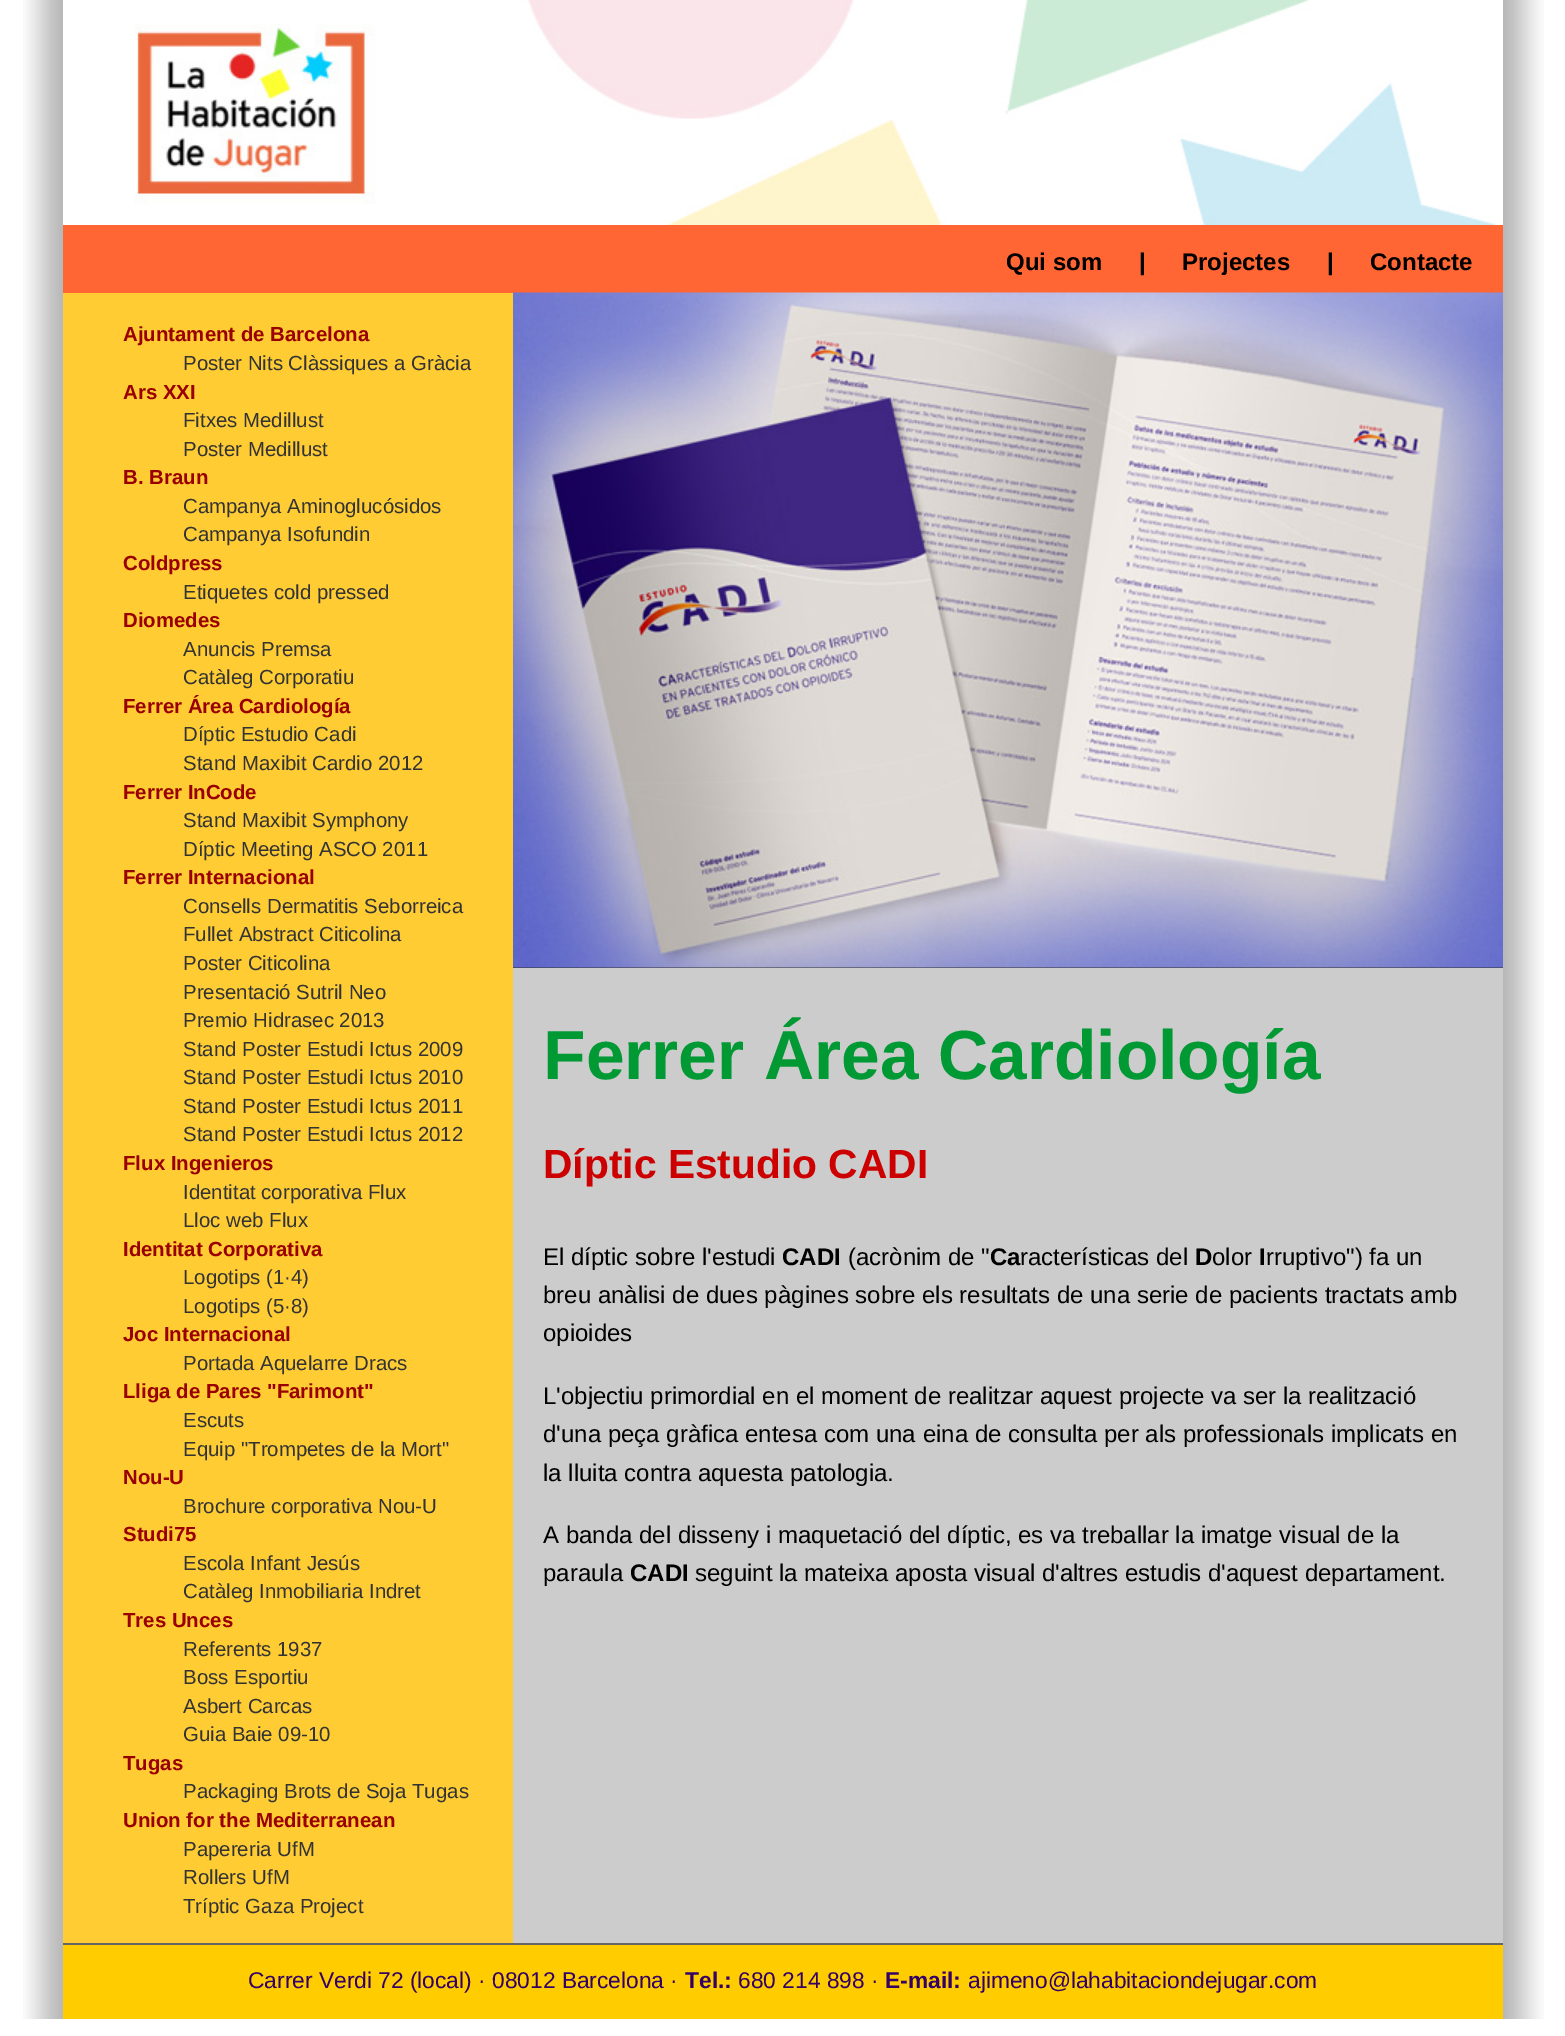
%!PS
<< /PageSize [1565 2036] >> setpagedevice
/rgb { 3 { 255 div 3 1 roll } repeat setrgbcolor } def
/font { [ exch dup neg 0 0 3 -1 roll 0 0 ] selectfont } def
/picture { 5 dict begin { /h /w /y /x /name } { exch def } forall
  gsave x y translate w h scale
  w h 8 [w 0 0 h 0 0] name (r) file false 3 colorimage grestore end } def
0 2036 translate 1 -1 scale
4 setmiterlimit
255 255 255 rgb
0 0 1565 2036 rectfill
(img/1.rgb) 23 0 1521 2019 picture
204 204 204 rgb
513 968 990 975 rectfill
(img/2.rgb) 63 0 1440 225 picture
[
  [63 225 1440 68 255 102 51]
  [63 293 450 1650 255 204 51]
  [513 967 990 1 51 51 51]
] { aload pop rgb rectfill } forall
(img/3.rgb) 513 292 990 676 picture
255 204 0 rgb
63 1945 1440 74 rectfill
102 102 102 rgb
63 1943 1440 2 rectfill
/LiberationSans-Bold 24 font
0 0 0 rgb
[
  [(Qui som) 1006 270]
  [(|) 1139 270]
  [(Projectes) 1182 270]
  [(|) 1327 270]
  [(Contacte) 1370 270]
] { aload pop moveto show } forall
/LiberationSans-Bold 20.4 font
153 0 0 rgb
123 341 moveto (Ajuntament de Barcelona) show
/LiberationSans-Regular 20.4 font
51 51 51 rgb
183 370 moveto (Poster Nits Clàssiques a Gràcia) show
/LiberationSans-Bold 20.4 font
153 0 0 rgb
123 399 moveto (Ars XXI) show
/LiberationSans-Regular 20.4 font
51 51 51 rgb
183 427 moveto (Fitxes Medillust) show
183 456 moveto (Poster Medillust) show
/LiberationSans-Bold 20.4 font
153 0 0 rgb
123 484 moveto (B. Braun) show
/LiberationSans-Regular 20.4 font
51 51 51 rgb
183 513 moveto (Campanya Aminoglucósidos) show
183 541 moveto (Campanya Isofundin) show
/LiberationSans-Bold 20.4 font
153 0 0 rgb
123 570 moveto (Coldpress) show
/LiberationSans-Regular 20.4 font
51 51 51 rgb
183 599 moveto (Etiquetes cold pressed) show
/LiberationSans-Bold 20.4 font
153 0 0 rgb
123 627 moveto (Diomedes) show
/LiberationSans-Regular 20.4 font
51 51 51 rgb
183 656 moveto (Anuncis Premsa) show
183 684 moveto (Catàleg Corporatiu) show
/LiberationSans-Bold 20.4 font
153 0 0 rgb
123 713 moveto (Ferrer Área Cardiología) show
/LiberationSans-Regular 20.4 font
51 51 51 rgb
183 741 moveto (Díptic Estudio Cadi) show
183 770 moveto (Stand Maxibit Cardio 2012) show
/LiberationSans-Bold 20.4 font
153 0 0 rgb
123 799 moveto (Ferrer InCode) show
/LiberationSans-Regular 20.4 font
51 51 51 rgb
183 827 moveto (Stand Maxibit Symphony) show
183 856 moveto (Díptic Meeting ASCO 2011) show
/LiberationSans-Bold 20.4 font
153 0 0 rgb
123 884 moveto (Ferrer Internacional) show
/LiberationSans-Regular 20.4 font
51 51 51 rgb
[
  [(Consells Dermatitis Seborreica) 183 913]
  [(Fullet Abstract Citicolina) 183 941]
  [(Poster Citicolina) 183 970]
  [(Presentació Sutril Neo) 183 999]
  [(Premio Hidrasec 2013) 183 1027]
  [(Stand Poster Estudi Ictus 2009) 183 1056]
  [(Stand Poster Estudi Ictus 2010) 183 1084]
  [(Stand Poster Estudi Ictus 2011) 183 1113]
  [(Stand Poster Estudi Ictus 2012) 183 1141]
] { aload pop moveto show } forall
/LiberationSans-Bold 20.4 font
153 0 0 rgb
123 1170 moveto (Flux Ingenieros) show
/LiberationSans-Regular 20.4 font
51 51 51 rgb
183 1199 moveto (Identitat corporativa Flux) show
183 1227 moveto (Lloc web Flux) show
/LiberationSans-Bold 20.4 font
153 0 0 rgb
123 1256 moveto (Identitat Corporativa) show
/LiberationSans-Regular 20.4 font
51 51 51 rgb
183 1284 moveto (Logotips \(1·4\)) show
183 1313 moveto (Logotips \(5·8\)) show
/LiberationSans-Bold 20.4 font
153 0 0 rgb
123 1341 moveto (Joc Internacional) show
/LiberationSans-Regular 20.4 font
51 51 51 rgb
183 1370 moveto (Portada Aquelarre Dracs) show
/LiberationSans-Bold 20.4 font
153 0 0 rgb
123 1398 moveto (Lliga de Pares "Farimont") show
/LiberationSans-Regular 20.4 font
51 51 51 rgb
183 1427 moveto (Escuts) show
183 1456 moveto (Equip "Trompetes de la Mort") show
/LiberationSans-Bold 20.4 font
153 0 0 rgb
123 1484 moveto (Nou-U) show
/LiberationSans-Regular 20.4 font
51 51 51 rgb
183 1513 moveto (Brochure corporativa Nou-U) show
/LiberationSans-Bold 20.4 font
153 0 0 rgb
123 1541 moveto (Studi75) show
/LiberationSans-Regular 20.4 font
51 51 51 rgb
183 1570 moveto (Escola Infant Jesús) show
183 1598 moveto (Catàleg Inmobiliaria Indret) show
/LiberationSans-Bold 20.4 font
153 0 0 rgb
123 1627 moveto (Tres Unces) show
/LiberationSans-Regular 20.4 font
51 51 51 rgb
[
  [(Referents 1937) 183 1656]
  [(Boss Esportiu) 183 1684]
  [(Asbert Carcas) 183 1713]
  [(Guia Baie 09-10) 183 1741]
] { aload pop moveto show } forall
/LiberationSans-Bold 20.4 font
153 0 0 rgb
123 1770 moveto (Tugas) show
/LiberationSans-Regular 20.4 font
51 51 51 rgb
183 1798 moveto (Packaging Brots de Soja Tugas) show
/LiberationSans-Bold 20.4 font
153 0 0 rgb
123 1827 moveto (Union for the Mediterranean) show
/LiberationSans-Regular 20.4 font
51 51 51 rgb
[
  [(Papereria UfM) 183 1856]
  [(Rollers UfM) 183 1884]
  [(Tríptic Gaza Project) 183 1913]
] { aload pop moveto show } forall
/LiberationSans-Bold 69.6 font
0 153 51 rgb
543 1079 moveto (Ferrer Área Cardiología) show
/LiberationSans-Bold 40.75 font
204 0 0 rgb
543 1178 moveto (Díptic Estudio CADI) show
/LiberationSans-Regular 24 font
0 0 0 rgb
543 1265 moveto (El díptic sobre l'estudi) show
/LiberationSans-Bold 24 font
782 1265 moveto (CADI) show
/LiberationSans-Regular 24 font
848 1265 moveto (\(acrònim de ") show
/LiberationSans-Bold 24 font
990 1265 moveto (Ca) show
/LiberationSans-Regular 24 font
1020 1265 moveto (racterísticas del) show
/LiberationSans-Bold 24 font
1195 1265 moveto (D) show
/LiberationSans-Regular 24 font
1212 1265 moveto (olor) show
/LiberationSans-Bold 24 font
1259 1265 moveto (I) show
/LiberationSans-Regular 24 font
[
  [(rruptivo"\) fa un) 1266 1265]
  [(breu anàlisi de dues pàgines sobre els resultats de una serie de pacients tractats amb) 543 1303]
  [(opioides) 543 1341]
  [(L'objectiu primordial en el moment de realitzar aquest projecte va ser la realització) 543 1404]
  [(d'una peça gràfica entesa com una eina de consulta per als professionals implicats en) 543 1442]
  [(la lluita contra aquesta patologia.) 543 1481]
  [(A banda del disseny i maquetació del díptic, es va treballar la imatge visual de la) 543 1543]
  [(paraula) 543 1581]
] { aload pop moveto show } forall
/LiberationSans-Bold 24 font
630 1581 moveto (CADI) show
/LiberationSans-Regular 24 font
695 1581 moveto (seguint la mateixa aposta visual d'altres estudis d'aquest departament.) show
/LiberationSans-Regular 22.75 font
51 0 102 rgb
248 1988 moveto (Carrer Verdi 72 \(local\) · 08012 Barcelona ·) show
/LiberationSans-Bold 22.75 font
685 1988 moveto (Tel.:) show
/LiberationSans-Regular 22.75 font
738 1988 moveto (680 214 898 ·) show
/LiberationSans-Bold 22.75 font
885 1988 moveto (E-mail:) show
/LiberationSans-Regular 22.75 font
968 1988 moveto (ajimeno@lahabitaciondejugar.com) show
showpage
